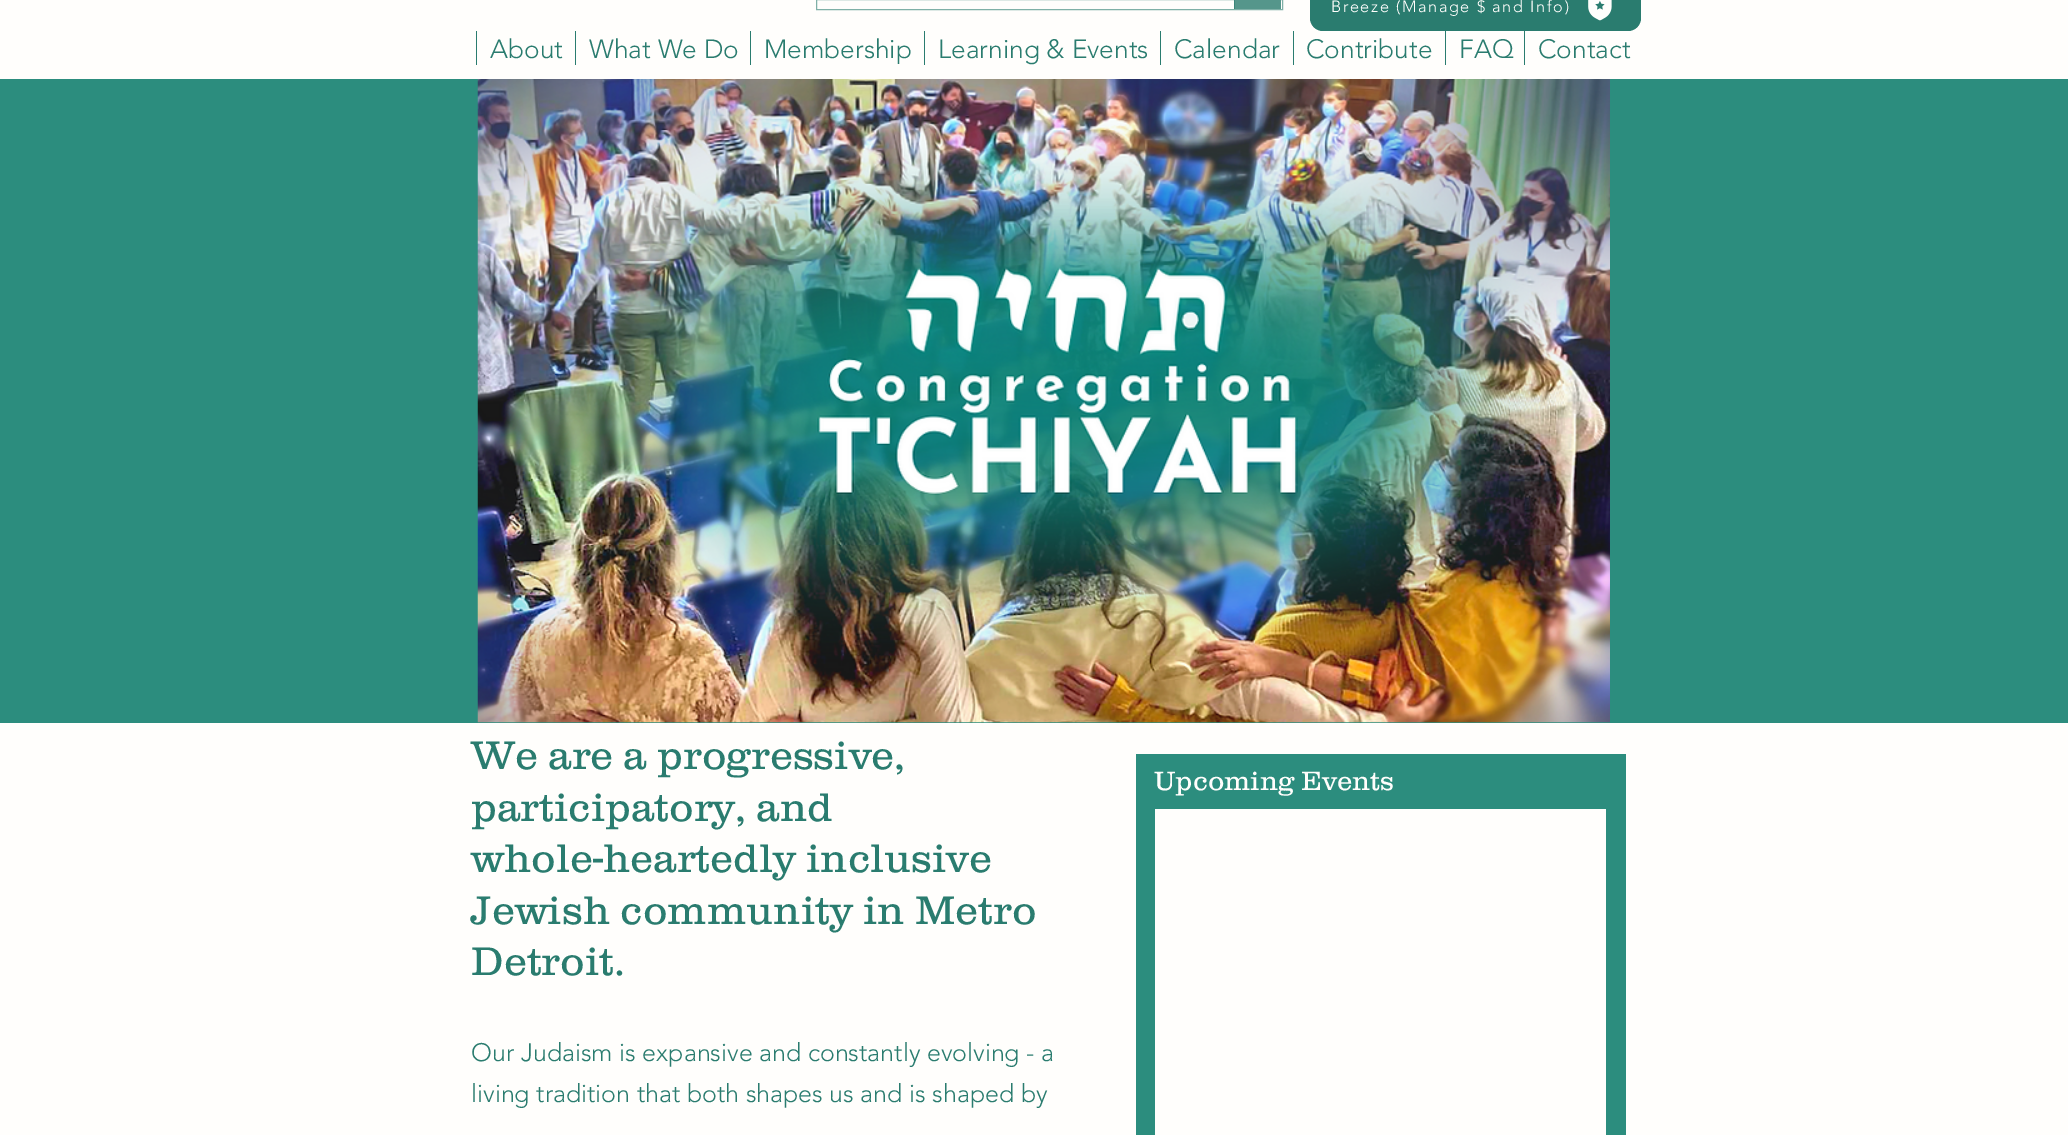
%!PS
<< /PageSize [2068 1135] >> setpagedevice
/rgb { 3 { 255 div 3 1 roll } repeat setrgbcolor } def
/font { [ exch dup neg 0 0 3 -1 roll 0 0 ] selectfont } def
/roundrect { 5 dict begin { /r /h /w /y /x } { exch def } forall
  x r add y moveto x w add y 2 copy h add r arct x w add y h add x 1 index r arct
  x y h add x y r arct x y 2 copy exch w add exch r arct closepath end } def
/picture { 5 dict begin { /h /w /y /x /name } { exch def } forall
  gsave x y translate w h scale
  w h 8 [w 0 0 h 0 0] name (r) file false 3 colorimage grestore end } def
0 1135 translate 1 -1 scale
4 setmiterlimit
44 141 126 rgb
0 0 2068 1135 rectfill
255 254 252 rgb
0 0 2068 79 rectfill
127 176 167 rgb
816.5 -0.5 466 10 rectstroke
85 150 139 rgb
1235 0 46 9 rectfill
59 134 122 rgb
1234 0 1 9 rectfill
42 124 111 rgb
1310 -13 331 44 13 roundrect fill
(img/1.rgb) 1588 0 24 21 picture
[
  [476 31 1 34 42 124 111]
  [575 31 1 34 42 124 111]
  [750 31 1 34 42 124 111]
  [924 31 1 34 42 124 111]
  [1160 31 1 34 42 124 111]
  [1293 31 1 34 42 124 111]
  [1445 31 1 34 42 124 111]
  [1524 31 1 34 42 124 111]
] { aload pop rgb rectfill } forall
(img/2.rgb) 477 79 1133 644 picture
[
  [0 723 2068 412 255 254 252]
  [1136 754 490 381 44 141 126]
  [1155 809 451 326 255 254 252]
] { aload pop rgb rectfill } forall
/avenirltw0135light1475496-Light 16.25 font
1331 12 moveto 1.6 0 (Breeze \(Manage $ and Info\)) ashow
/avenirltw0135light1475496-Light 26.25 font
42 124 111 rgb
[
  [(About) 490 58]
  [(What We Do) 589 58]
  [(Membership) 764 58]
  [(Learning & Events) 938 58]
  [(Calendar) 1174 58]
  [(Contribute) 1306 58]
  [(FAQ) 1459 58]
  [(Contact) 1538 58]
] { aload pop moveto show } forall
/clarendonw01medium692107-Light 41.25 font
[
  [(We are a progressive,) 471 769]
  [(participatory, and) 471 821]
  [(whole-heartedly inclusive) 471 872]
  [(Jewish community in Metro) 471 924]
  [(Detroit.) 471 975]
] { aload pop moveto show } forall
/clarendonw01medium692107-Light 27.5 font
255 254 252 rgb
1154 790 moveto (Upcoming Events) show
/avenirltw0135light1475496-Light 25 font
42 124 111 rgb
471 1061 moveto (Our Judaism is expansive and constantly evolving - a) show
471 1102 moveto (living tradition that both shapes us and is shaped by) show
showpage
